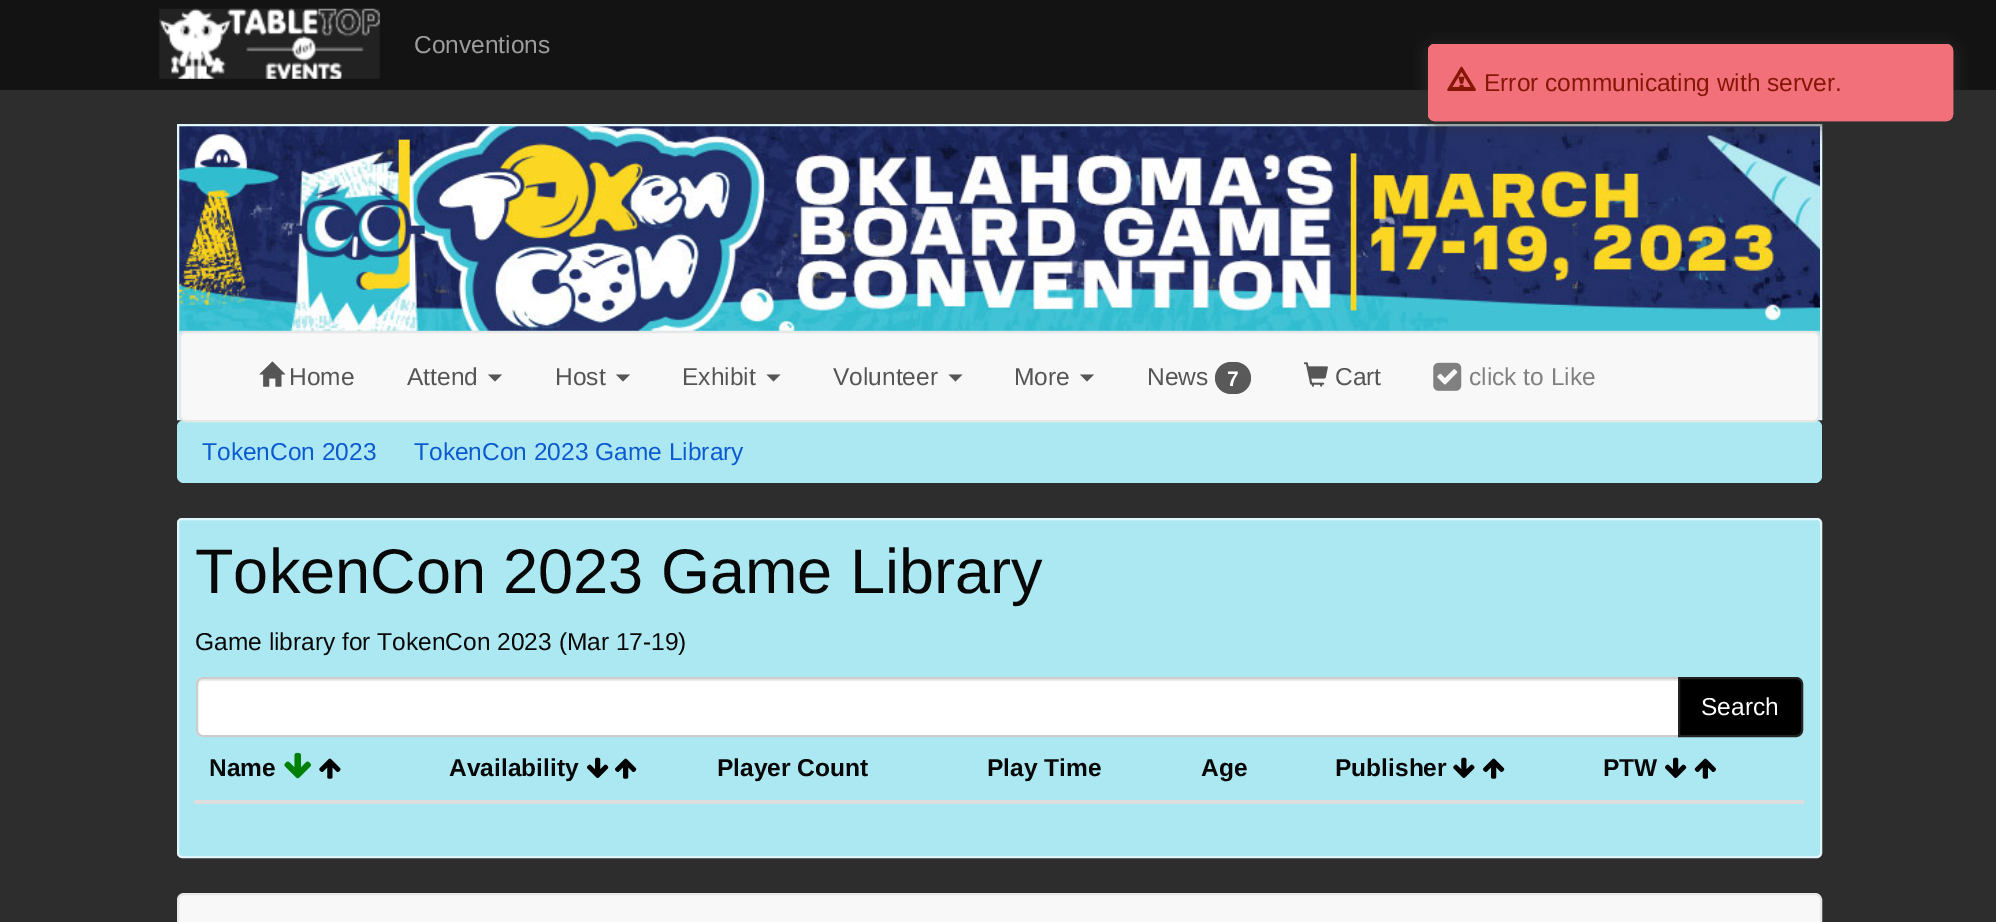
%!PS
<< /PageSize [1996 922] /PageUsesTransparency true >> setpagedevice
/rgb { 3 { 255 div 3 1 roll } repeat setrgbcolor } def
/font { [ exch dup neg 0 0 3 -1 roll 0 0 ] selectfont } def
/alpha { dup .setfillconstantalpha .setstrokeconstantalpha } def
/roundrect { 5 dict begin { /r /h /w /y /x } { exch def } forall
  x r add y moveto x w add y 2 copy h add r arct x w add y h add x 1 index r arct
  x y h add x y r arct x y 2 copy exch w add exch r arct closepath end } def
/shadow { 12 dict begin { /a /b /q /h /w /y /x } { exch def } forall gsave /was 0 def
  9 -2 -9 { dup b mul 4 div /e exch def 1 sub .425 mul 2.718 exch exp 1 add a .99 .min exch div /now exch def
    1 1 now sub 1 was sub div sub alpha /was now def
    w h .min e 2 mul add 0 gt { x e sub y e sub w e 2 mul add h e 2 mul add
      q e add b .6 mul add w h .min 2 div e add .min 0 .max roundrect fill } if } for grestore end } def
/picture { 5 dict begin { /h /w /y /x /name } { exch def } forall
  gsave x y translate w h scale
  w h 8 [w 0 0 h 0 0] name (r) file false 3 colorimage grestore end } def
0 .pushpdf14devicefilter
0 922 translate 1 -1 scale
4 setmiterlimit
45 45 45 rgb
0 0 1996 922 rectfill
19 19 19 rgb
0 0 1996 90 rectfill
(img/1.rgb) 159 8 221 71 picture
172 232 242 rgb
179 330 1641 88 rectfill
(img/4.rgb) 179 126 1641 205 picture
225 246 250 rgb
2 setlinewidth
178 125 1643 294 rectstroke
gsave
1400 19 moveto 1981 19 lineto 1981 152 lineto 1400 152 lineto closepath 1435 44 moveto 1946 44 lineto 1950 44 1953 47 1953 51 curveto 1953 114 lineto 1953 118 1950 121 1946 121 curveto 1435 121 lineto 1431 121 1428 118 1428 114 curveto 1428 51 lineto 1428 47 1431 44 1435 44 curveto closepath eoclip newpath
50 50 50 rgb
1428 47 525 77 7 9 0.47 shadow
grestore
0.95 alpha
242 112 121 rgb
1428 44 525 77 7 roundrect fill
1429 45 523 75 6 roundrect stroke
1 alpha
(img/2.rgb) 1447 66 29 25 picture
gsave
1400 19 moveto 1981 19 lineto 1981 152 lineto 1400 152 lineto closepath 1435 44 moveto 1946 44 lineto 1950 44 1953 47 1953 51 curveto 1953 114 lineto 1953 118 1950 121 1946 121 curveto 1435 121 lineto 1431 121 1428 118 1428 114 curveto 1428 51 lineto 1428 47 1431 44 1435 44 curveto closepath eoclip newpath
50 50 50 rgb
1428 47 525 77 7 9 0.47 shadow
grestore
0.95 alpha
1428 44 525 77 7 roundrect fill
1429 45 523 75 6 roundrect stroke
1 alpha
(img/3.rgb) 1447 66 29 25 picture
172 232 242 rgb
177 420 1645 63 7 roundrect fill
248 248 248 rgb
180 332 1639 89 6 roundrect gsave fill grestore
231 231 231 rgb
stroke
(img/5.rgb) 259 361 27 26 picture
85 85 85 rgb
488 374.5 moveto 502 374.5 lineto 495 381.5 lineto closepath fill
616 374.5 moveto 630 374.5 lineto 623 381.5 lineto closepath fill
766.5 374.5 moveto 780.5 374.5 lineto 773.5 381.5 lineto closepath fill
948.5 374.5 moveto 962.5 374.5 lineto 955.5 381.5 lineto closepath fill
1080 374.5 moveto 1094 374.5 lineto 1087 381.5 lineto closepath fill
89 89 89 rgb
1215 362 36 32 16 roundrect fill
(img/6.rgb) 1303 362 25 25 picture
(img/7.rgb) 1433 362 29 29 picture
172 232 242 rgb
178 519 1643 338 4 roundrect gsave fill grestore
225 246 250 rgb
stroke
255 255 255 rgb
203 677 moveto 1680 677 lineto 1680 737 lineto 203 737 lineto 199 737 196 734 196 730 curveto 196 684 lineto 196 680 199 677 203 677 curveto closepath fill
236 236 236 rgb
203 681 moveto 1678 681 lineto 1678 679 lineto 203 679 lineto 199 679 198 683 198 686 curveto 198 683 200 681 203 681 curveto closepath fill
204 204 204 rgb
203 678 moveto 1679 678 lineto 1679 736 lineto 203 736 lineto 199.5 736 197 733.5 197 730 curveto 197 684 lineto 197 680.5 199.5 678 203 678 curveto closepath stroke
0 0 0 rgb
1679 678 moveto 1796 678 lineto 1799.5 678 1802 680.5 1802 684 curveto 1802 730 lineto 1802 733.5 1799.5 736 1796 736 curveto 1679 736 lineto closepath gsave fill grestore
34 34 34 rgb
stroke
(img/8.rgb) 284 752 27 27 picture
(img/9.rgb) 319 758 22 21 picture
(img/10.rgb) 587 757 22 21 picture
(img/11.rgb) 615 758 22 21 picture
(img/12.rgb) 1453 757 22 21 picture
(img/11.rgb) 1483 758 22 21 picture
221 221 221 rgb
194 800 1610 4 rectfill
(img/10.rgb) 1665 757 22 21 picture
(img/13.rgb) 1694 758 22 21 picture
248 248 248 rgb
178 894 1643 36 6 roundrect gsave fill grestore
231 231 231 rgb
stroke
/LiberationSans-Regular 24.5 font
157 157 157 rgb
414 53 moveto (Conventions) show
134 22 6 rgb
1484 91 moveto (Error communicating with server.) show
85 85 85 rgb
[
  [(Home) 289 385]
  [(Attend) 407 385]
  [(Host) 555 385]
  [(Exhibit) 682 385]
  [(Volunteer) 833 385]
  [(More) 1014 385]
  [(News) 1147 385]
] { aload pop moveto show } forall
/LiberationSans-Bold 21 font
255 255 255 rgb
1227 386 moveto (7) show
/LiberationSans-Regular 24.5 font
85 85 85 rgb
1335 385 moveto (Cart) show
128 128 128 rgb
1469 385 moveto (click to Like) show
12 90 207 rgb
202 460 moveto (TokenCon 2023) show
414 460 moveto (TokenCon 2023 Game Library) show
/LiberationSans-Regular 63 font
9 8 8 rgb
195 593 moveto (TokenCon 2023 Game Library) show
/LiberationSans-Regular 24.5 font
195 650 moveto (Game library for TokenCon 2023 \(Mar 17-19\)) show
255 255 255 rgb
1701 715 moveto (Search) show
/LiberationSans-Bold 24.5 font
9 8 8 rgb
[
  [(Name) 209 776]
  [(Availability) 449 776]
  [(Player Count) 717 776]
  [(Play Time) 987 776]
  [(Age) 1201 776]
  [(Publisher) 1335 776]
  [(PTW) 1603 776]
] { aload pop moveto show } forall
.poppdf14devicefilter showpage
